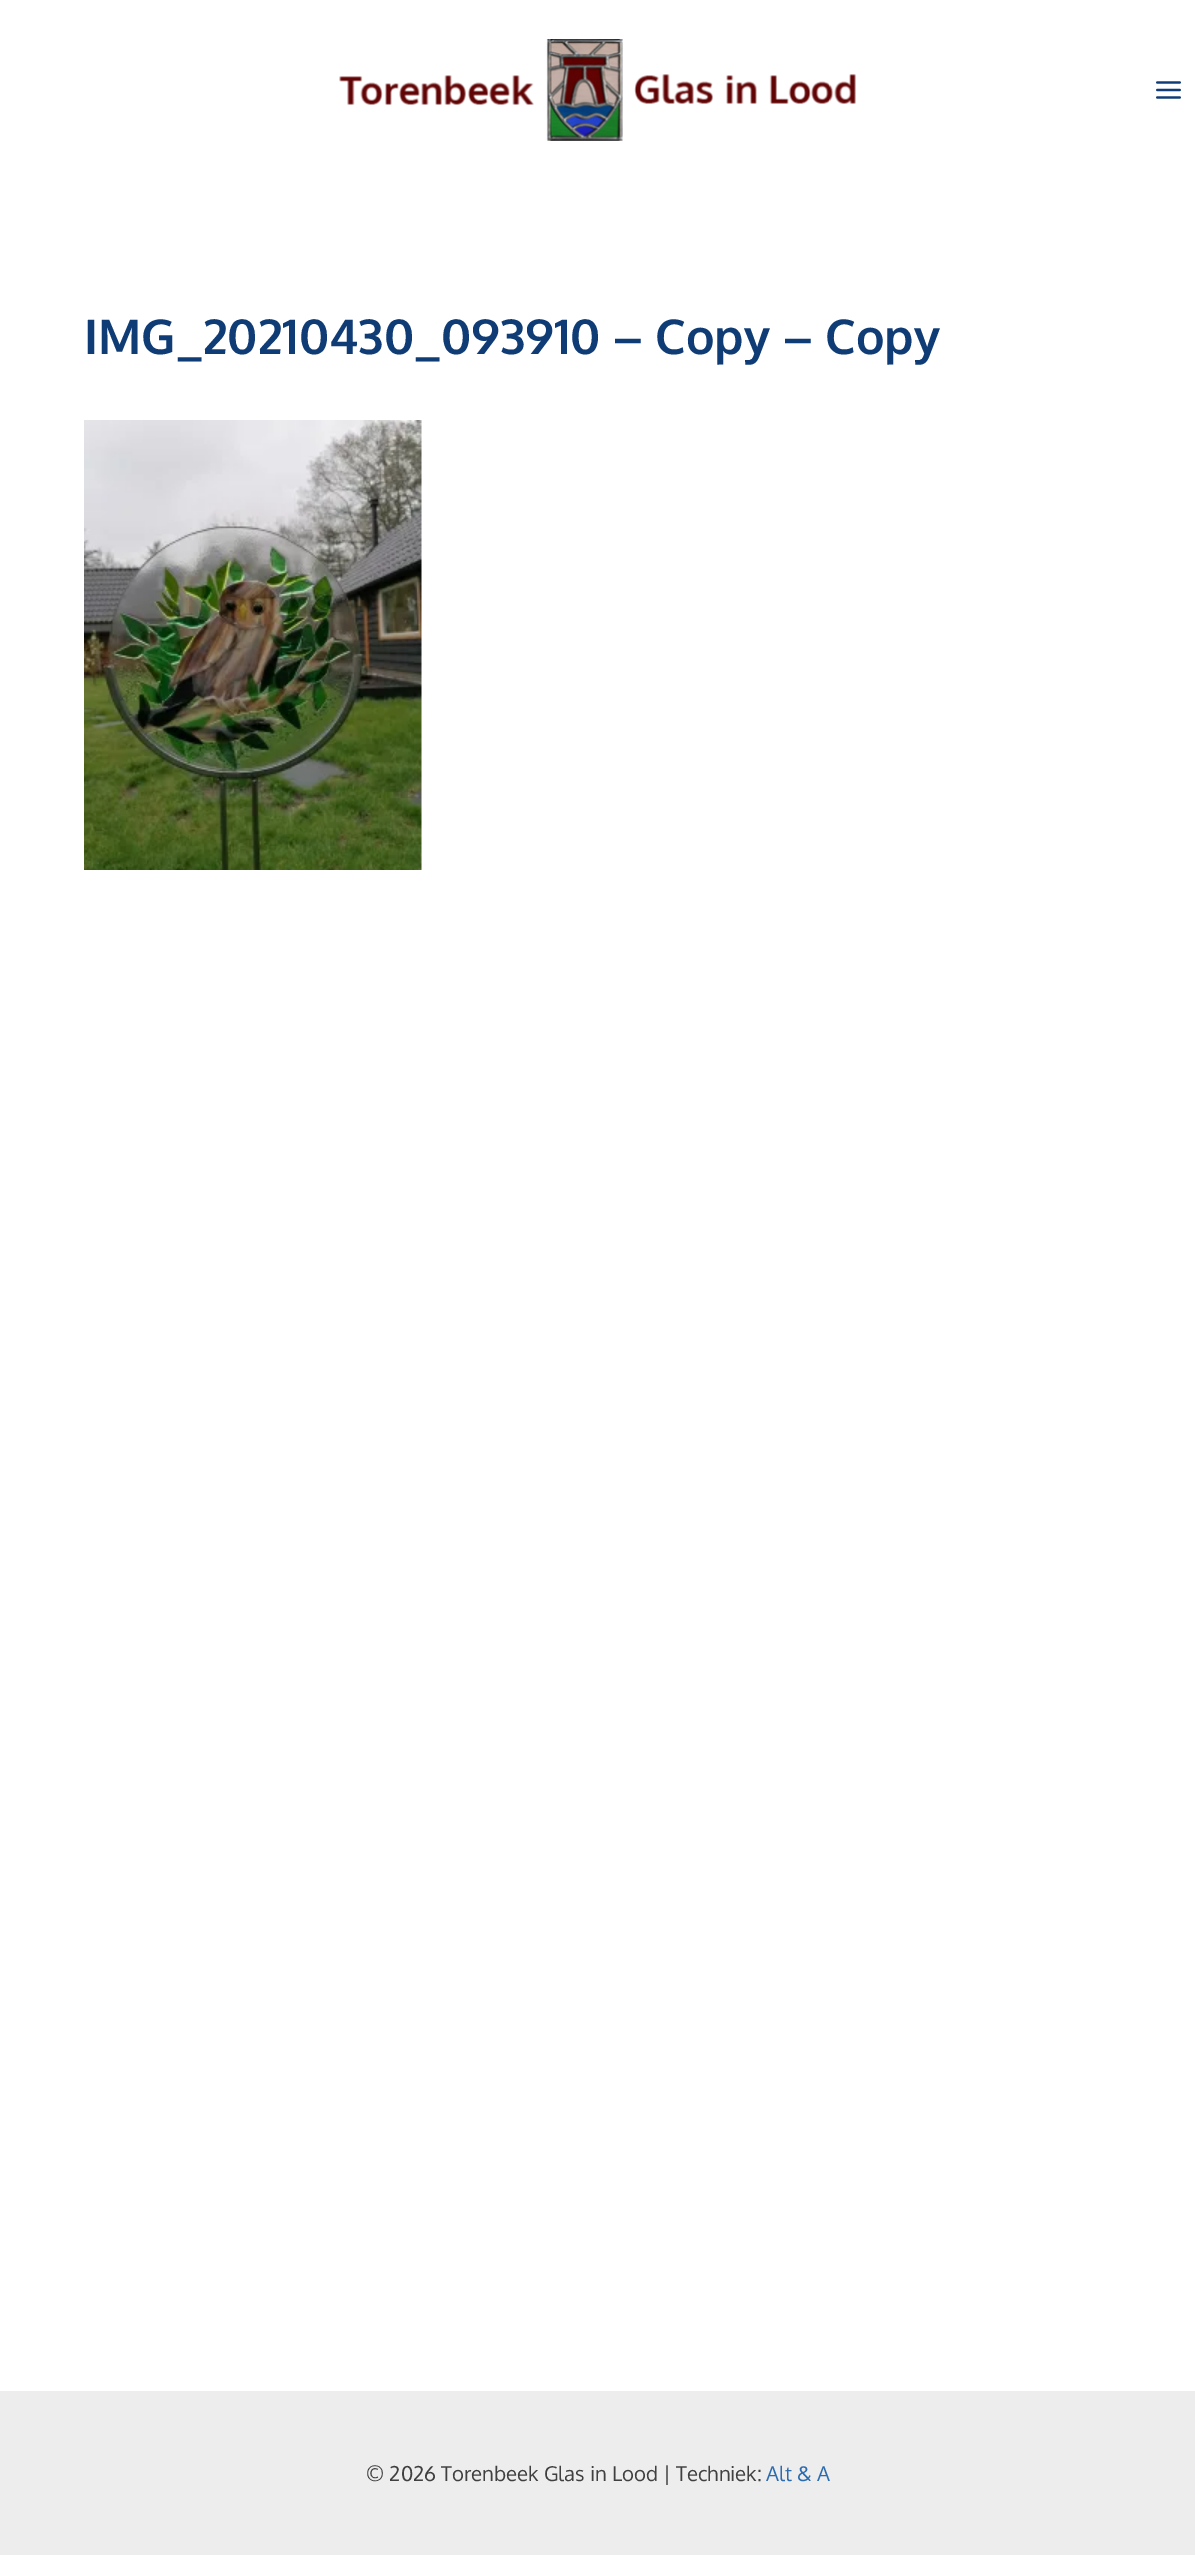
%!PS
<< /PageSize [1195 2555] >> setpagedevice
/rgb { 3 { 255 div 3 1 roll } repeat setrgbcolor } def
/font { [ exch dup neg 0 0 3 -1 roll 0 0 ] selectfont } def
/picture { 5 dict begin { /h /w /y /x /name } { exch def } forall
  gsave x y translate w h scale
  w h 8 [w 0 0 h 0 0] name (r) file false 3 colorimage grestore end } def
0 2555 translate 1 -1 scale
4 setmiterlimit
255 255 255 rgb
0 0 1195 2555 rectfill
(img/1.rgb) 339 39 517 102 picture
(img/2.rgb) 1156 81 25 18 picture
(img/3.rgb) 84 420 338 450 picture
237 237 237 rgb
0 2391 1195 164 rectfill
/Oxygen-Bold 48 font
15 60 117 rgb
84 354 moveto (IMG_20210430_093910 – Copy – Copy) show
/Oxygen-Regular 20.4 font
64 64 64 rgb
366 2481 moveto (© 2026 Torenbeek Glas in Lood | Techniek:) show
43 108 176 rgb
766 2481 moveto (Alt & A) show
showpage
